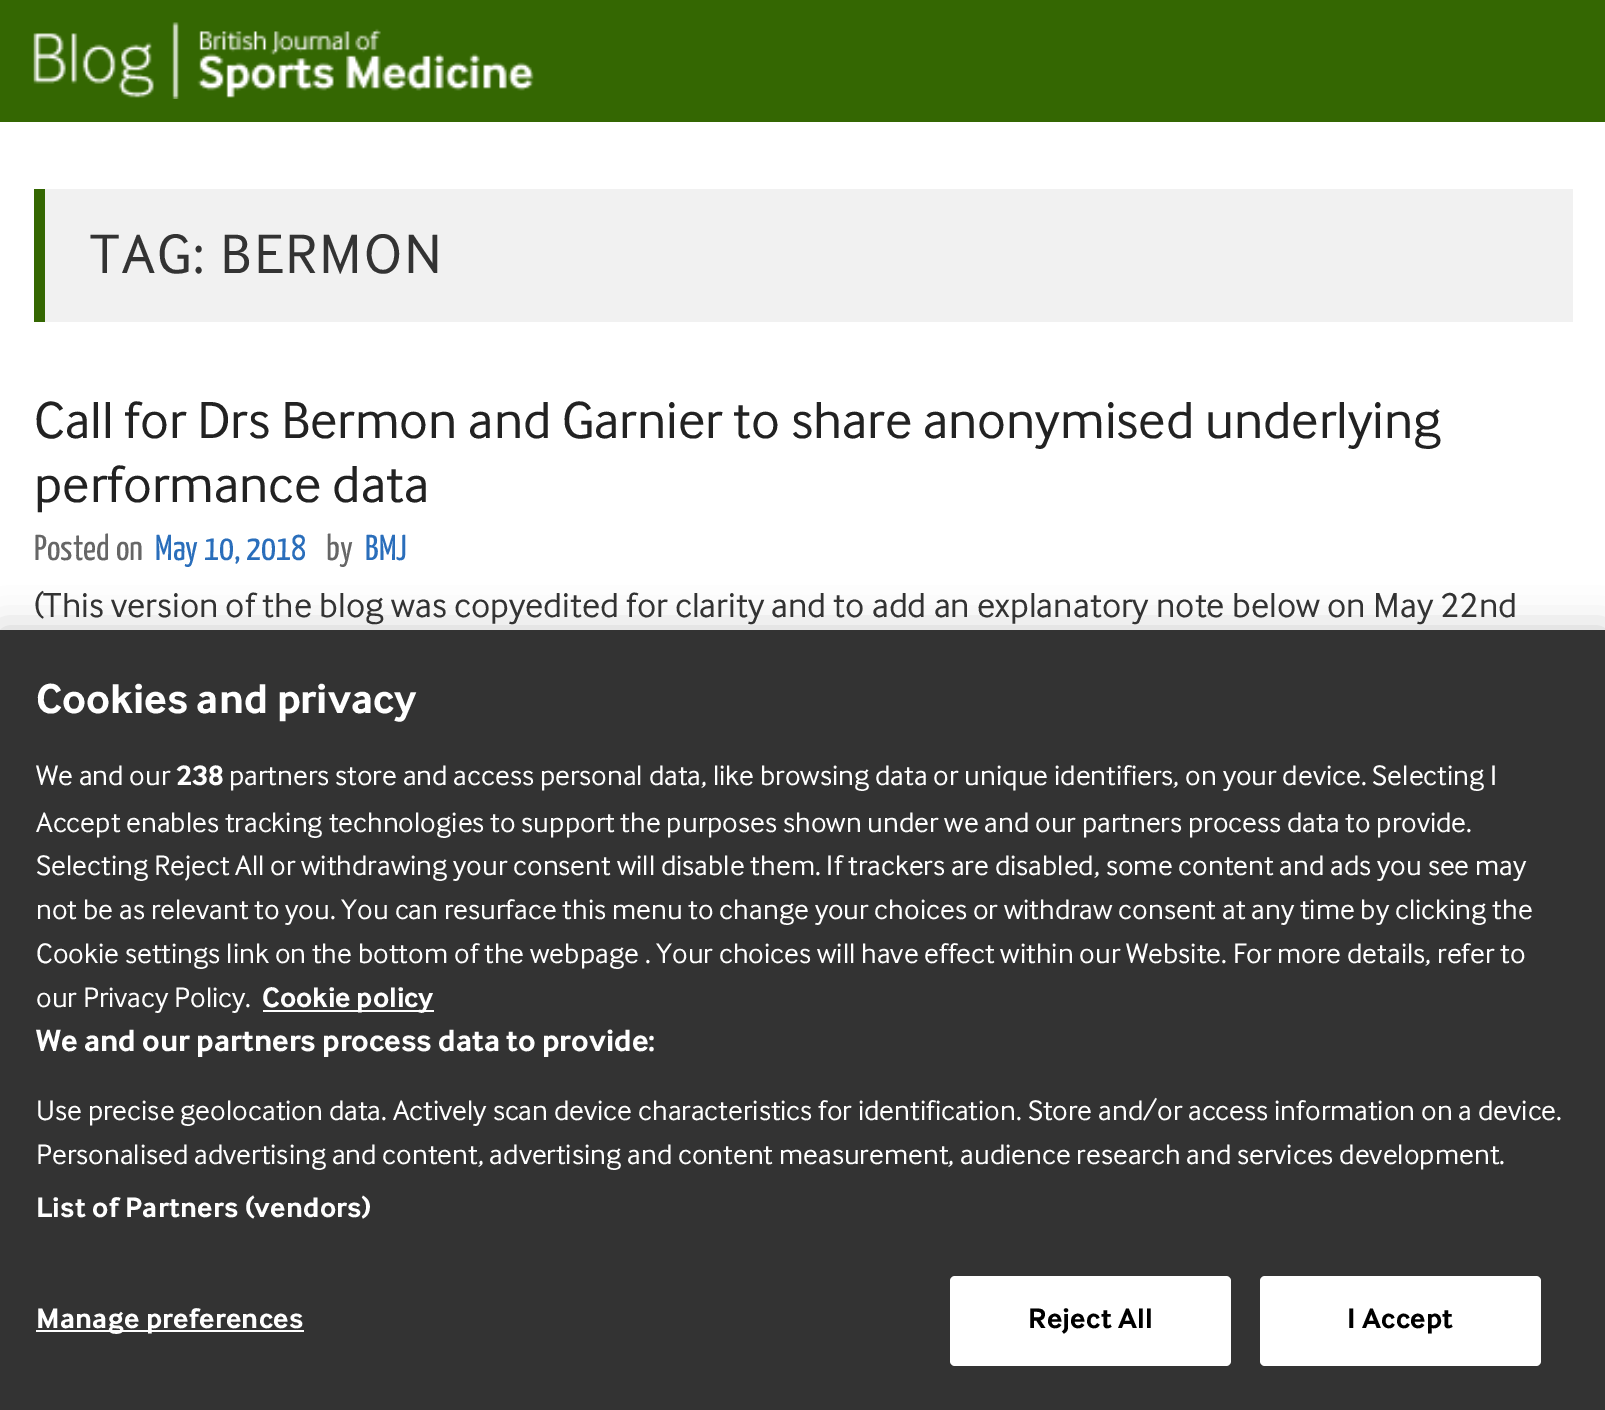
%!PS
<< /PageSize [1605 1410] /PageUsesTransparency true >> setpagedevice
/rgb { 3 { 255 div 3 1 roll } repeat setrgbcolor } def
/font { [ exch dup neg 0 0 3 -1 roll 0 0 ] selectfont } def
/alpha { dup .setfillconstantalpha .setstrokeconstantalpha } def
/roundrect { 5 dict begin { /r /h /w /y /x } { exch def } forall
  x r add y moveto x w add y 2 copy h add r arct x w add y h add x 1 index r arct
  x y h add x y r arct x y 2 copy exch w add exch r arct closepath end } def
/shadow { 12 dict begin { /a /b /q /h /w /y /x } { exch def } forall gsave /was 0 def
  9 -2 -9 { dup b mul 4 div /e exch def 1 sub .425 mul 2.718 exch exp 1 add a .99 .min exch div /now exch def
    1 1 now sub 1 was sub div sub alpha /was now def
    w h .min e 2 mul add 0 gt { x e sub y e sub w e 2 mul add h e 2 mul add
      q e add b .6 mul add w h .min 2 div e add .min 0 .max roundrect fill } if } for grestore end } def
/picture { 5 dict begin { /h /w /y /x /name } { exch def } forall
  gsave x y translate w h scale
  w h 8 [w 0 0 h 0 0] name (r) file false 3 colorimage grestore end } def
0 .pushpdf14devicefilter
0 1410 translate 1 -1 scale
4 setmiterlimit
255 255 255 rgb
0 0 1605 1410 rectfill
52 103 2 rgb
0 0 1605 122 rectfill
(img/1.rgb) 33 22 501 77 picture
241 241 241 rgb
45 189 1528 133 rectfill
52 103 2 rgb
34 189 11 133 rectfill
0 0 0 rgb
0 630 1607 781 0 20 0.2 shadow
[
  [0 630 1605 780 51 51 51]
  [263 1010 171 2 255 255 255]
  [36 1330 268 2 255 255 255]
] { aload pop rgb rectfill } forall
950 1276 281 90 5 roundrect fill
1260 1276 281 90 5 roundrect fill
/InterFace-Regular 57.5 font
51 51 51 rgb
90 273 moveto 2.25 0 (TAG: BERMON) ashow
/InterFace-Regular 54 font
34 34 34 rgb
34 438 moveto (Call for Drs Bermon and Garnier to share anonymised underlying) show
34 502 moveto (performance data) show
/YanoneKaffeesatz-Regular 36 font
102 102 102 rgb
34 560 moveto (Posted on) show
42 110 187 rgb
155 560 moveto (May 10, 2018) show
102 102 102 rgb
326 560 moveto (by) show
42 110 187 rgb
365 560 moveto (BMJ) show
/InterFace-Regular 36 font
51 51 51 rgb
34 617 moveto (\(This version of the blog was copyedited for clarity and to add an explanatory note below on May 22nd) show
/InterFace-Bold 43.25 font
255 255 255 rgb
36 713 moveto (Cookies and privacy) show
/InterFace-Regular 29.27 font
36 785 moveto (We and our) show
/InterFace-Bold 29.27 font
176 785 moveto (238) show
/InterFace-Regular 29.27 font
[
  [(partners store and access personal data, like browsing data or unique identifiers, on your device. Selecting I) 229 785]
  [(Accept enables tracking technologies to support the purposes shown under we and our partners process data to provide.) 36 832]
  [(Selecting Reject All or withdrawing your consent will disable them. If trackers are disabled, some content and ads you see may) 36 875]
  [(not be as relevant to you. You can resurface this menu to change your choices or withdraw consent at any time by clicking the) 36 919]
  [(Cookie settings link on the bottom of the webpage . Your choices will have effect within our Website. For more details, refer to) 36 963]
  [(our Privacy Policy.) 36 1007]
] { aload pop moveto show } forall
/InterFace-Bold 29.27 font
262 1007 moveto (Cookie policy) show
/InterFace-Bold 31.7 font
36 1051 moveto (We and our partners process data to provide:) show
/InterFace-Regular 29.27 font
36 1120 moveto (Use precise geolocation data. Actively scan device characteristics for identification. Store and/or access information on a device.) show
36 1164 moveto (Personalised advertising and content, advertising and content measurement, audience research and services development.) show
/InterFace-Bold 29.27 font
36 1217 moveto 0.3 0 (List of Partners \(vendors\)) ashow
36 1328 moveto 0.3 0 (Manage preferences) ashow
0 0 0 rgb
1028 1328 moveto 0.3 0 (Reject All) ashow
1347 1328 moveto 0.3 0 (I Accept) ashow
.poppdf14devicefilter showpage
